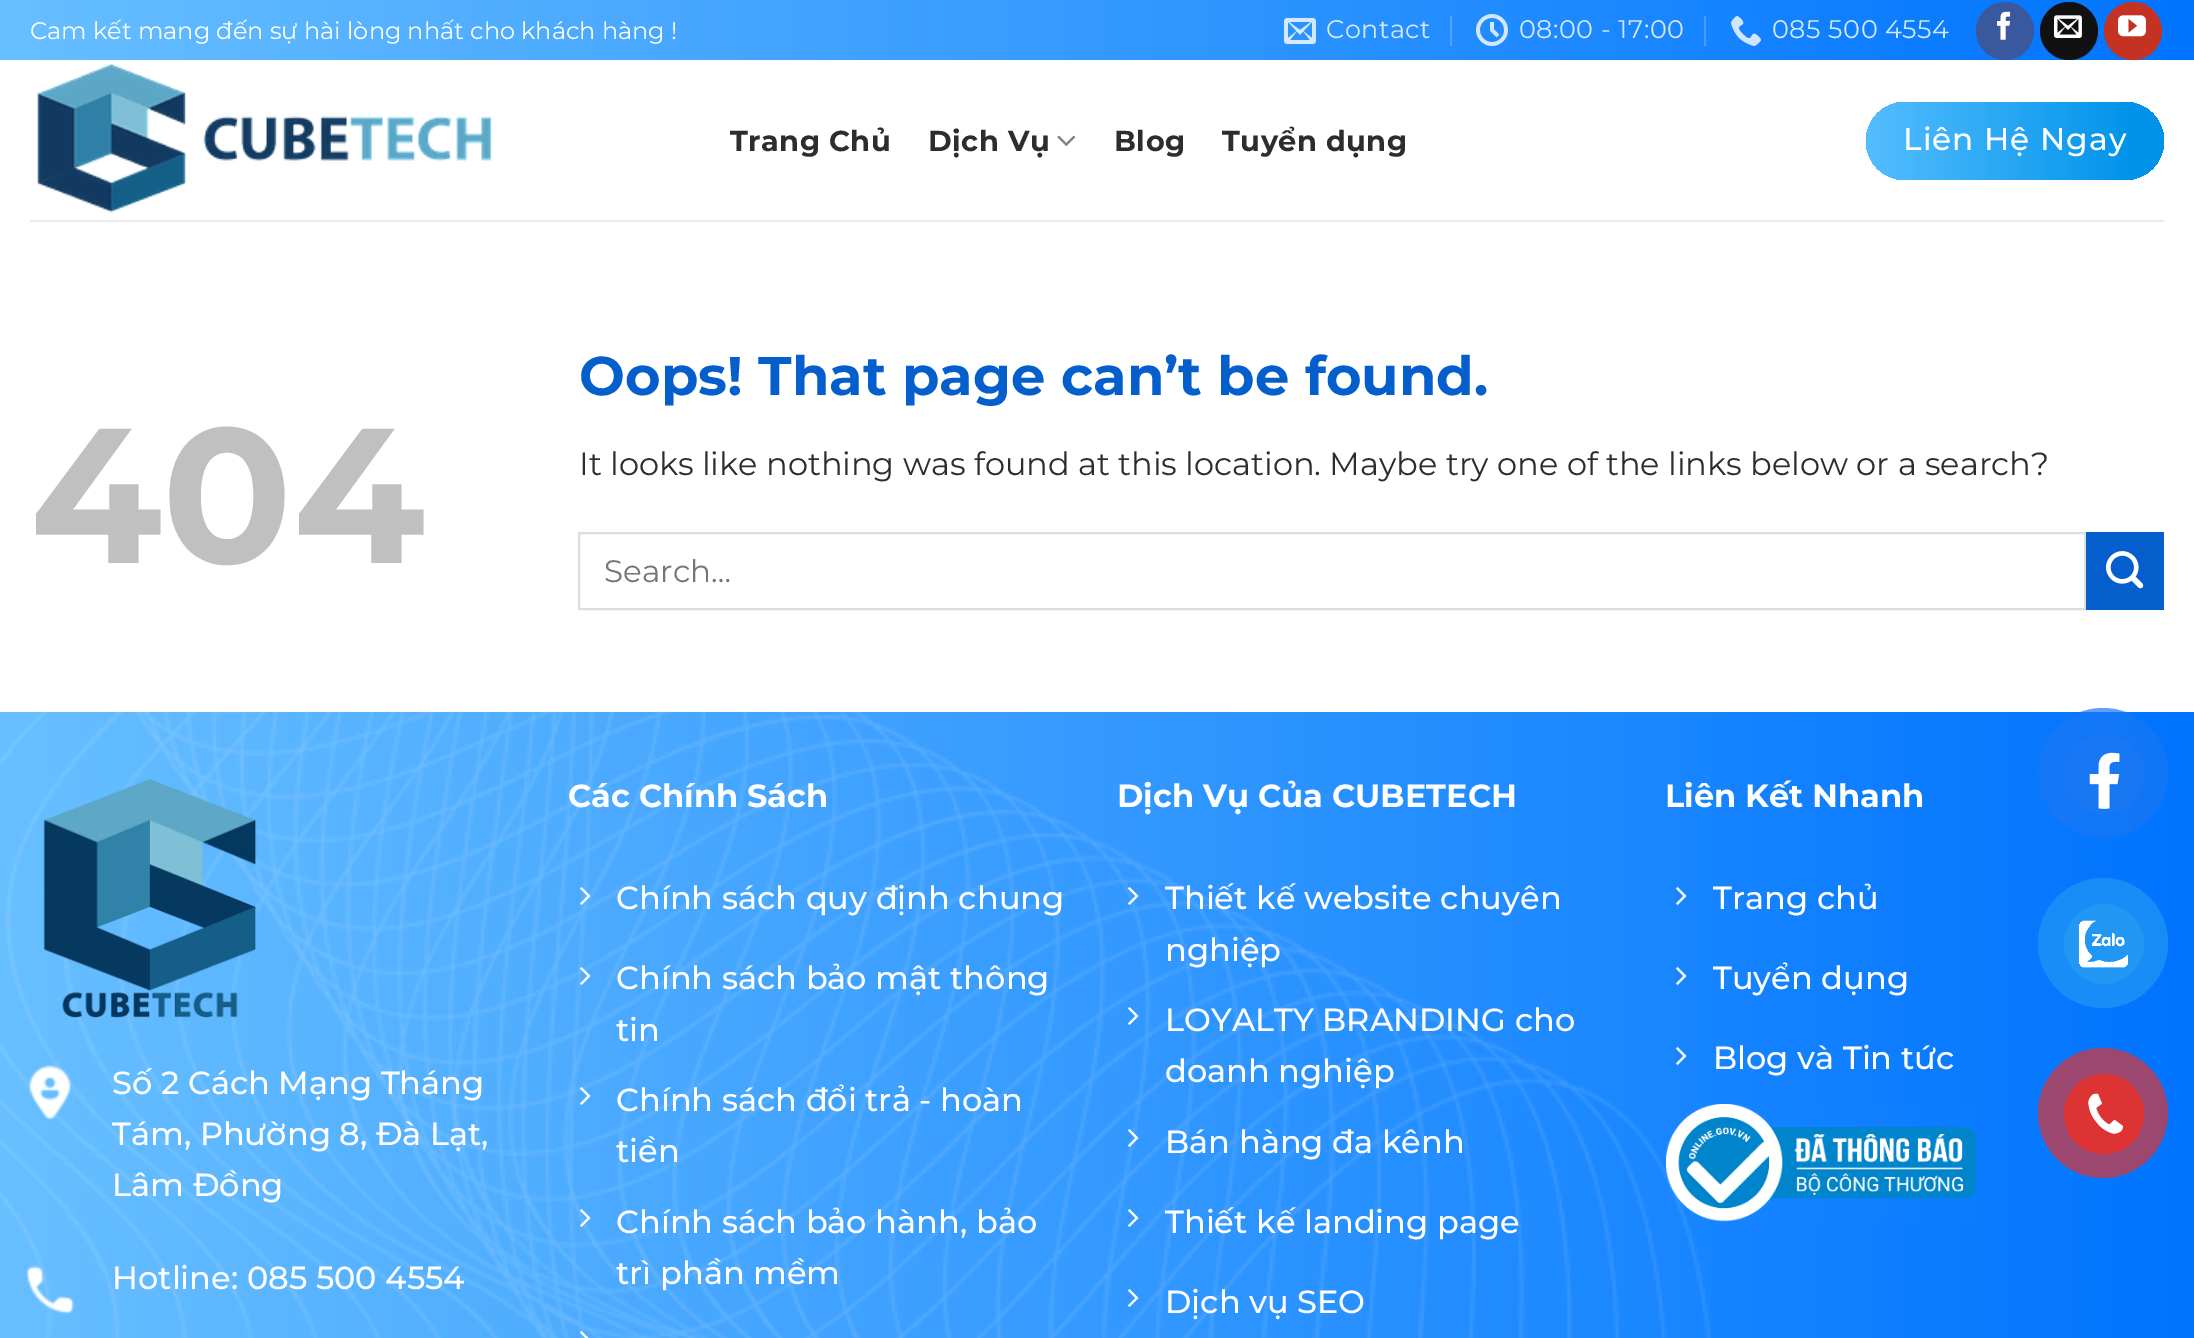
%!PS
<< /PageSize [2194 1338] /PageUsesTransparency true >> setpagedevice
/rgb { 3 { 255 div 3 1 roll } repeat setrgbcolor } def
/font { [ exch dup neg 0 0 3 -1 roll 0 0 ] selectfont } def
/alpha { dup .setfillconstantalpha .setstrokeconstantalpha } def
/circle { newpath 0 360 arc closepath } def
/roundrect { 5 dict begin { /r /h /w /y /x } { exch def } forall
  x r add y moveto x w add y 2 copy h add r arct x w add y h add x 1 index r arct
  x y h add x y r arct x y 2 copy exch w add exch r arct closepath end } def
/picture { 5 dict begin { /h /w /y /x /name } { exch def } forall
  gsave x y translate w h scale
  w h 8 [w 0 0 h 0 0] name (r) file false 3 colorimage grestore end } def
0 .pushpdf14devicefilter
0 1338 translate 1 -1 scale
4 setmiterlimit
255 255 255 rgb
0 0 2194 1338 rectfill
gsave 0 0 moveto 2194 0 lineto 2194 60 lineto 0 60 lineto closepath clip newpath
<< /ShadingType 2 /ColorSpace /DeviceRGB /Coords [0 30 2194 30] /Extend [true true] /Function << /FunctionType 2 /Domain [0 1] /C0 [0.408 0.749 1] /C1 [0 0.455 1] /N 1 >> >> shfill grestore
(img/1.rgb) 1284 18 32 26 picture
79 164 255 rgb
1450 16 2 30 rectfill
(img/2.rgb) 1476 14 32 32 picture
69 157 255 rgb
1704 16 2 30 rectfill
(img/3.rgb) 1731 16 30 30 picture
58 88 157 rgb
2005 31 29 circle fill
(img/4.rgb) 1997 11 14 29 picture
17 17 17 rgb
2069 31 29 circle fill
(img/5.rgb) 2054 15 28 23 picture
195 50 35 rgb
2133 31 29 circle fill
(img/6.rgb) 2118 15 28 22 picture
(img/7.rgb) 37 64 456 149 picture
(img/8.rgb) 1057 135 19 11 picture
gsave 1866 102 298 78 39 roundrect clip newpath
<< /ShadingType 2 /ColorSpace /DeviceRGB /Coords [1866 141 2164 141] /Extend [true true] /Function << /FunctionType 3 /Domain [0 1] /Functions [<< /FunctionType 2 /Domain [0 1] /C0 [0.333 0.741 1] /C1 [0 0.576 0.914] /N 1 >> << /FunctionType 2 /Domain [0 1] /C0 [0 0.576 0.914] /C1 [0 0.576 0.914] /N 1 >>] /Bounds [0.9] /Encode [0 1 0 1] >> >> shfill grestore
234 234 234 rgb
30 220 2134 2 rectfill
221 221 221 rgb
2 setlinewidth
579 533 1506 76 rectstroke
4 94 204 rgb
2086 532 78 78 rectfill
(img/9.rgb) 2106 551 38 38 picture
gsave 0 712 moveto 2194 712 lineto 2194 1338 lineto 0 1338 lineto closepath clip newpath
<< /ShadingType 2 /ColorSpace /DeviceRGB /Coords [0 1190 2194 1190] /Extend [true true] /Function << /FunctionType 2 /Domain [0 1] /C0 [0.408 0.749 1] /C1 [0 0.455 1] /N 1 >> >> shfill grestore
(img/10.rgb) 0 712 1711 626 picture
(img/11.rgb) 43 779 214 239 picture
(img/12.rgb) 29 1065 42 56 picture
(img/13.rgb) 25 1265 50 50 picture
(img/14.rgb) 580 887 11 18 picture
(img/15.rgb) 580 967 11 18 picture
(img/16.rgb) 580 1087 11 18 picture
(img/17.rgb) 580 1209 11 18 picture
(img/18.rgb) 580 1331 9 7 picture
(img/19.rgb) 1128 887 11 18 picture
(img/20.rgb) 1128 1007 11 18 picture
(img/21.rgb) 1128 1129 11 18 picture
(img/20.rgb) 1128 1209 11 18 picture
(img/20.rgb) 1128 1289 11 18 picture
(img/22.rgb) 1676 887 11 18 picture
(img/22.rgb) 1676 967 11 18 picture
(img/22.rgb) 1676 1047 11 18 picture
(img/23.rgb) 1666 1104 310 118 picture
0.7 alpha
24 119 242 rgb
2103 773 65 circle fill
1 alpha
2104 774 40 circle fill
(img/24.rgb) 2089 752 31 57 picture
0.7 alpha
33 150 243 rgb
2103 943 65 circle fill
1 alpha
2104 944 40 circle fill
(img/25.rgb) 2078 920 50 48 picture
0.7 alpha
221 51 51 rgb
2103 1113 65 circle fill
1 alpha
2104 1114 40 circle fill
(img/26.rgb) 2088 1093 35 41 picture
/Montserrat-Regular 24 font
255 255 255 rgb
30 39 moveto (Cam kết mang đến sự hài lòng nhất cho khách hàng !) show
/Montserrat-Regular 25.5 font
212 233 255 rgb
1326 38 moveto 0.5 0 (Contact) ashow
1519 38 moveto 0.5 0 (08:00 - 17:00) ashow
1772 38 moveto 0.5 0 (085 500 4554) ashow
/Montserrat-Bold 28.75 font
45 45 45 rgb
730 151 moveto 0.5 0 (Trang Chủ) ashow
928 151 moveto 0.5 0 (Dịch Vụ) ashow
1114 151 moveto 0.5 0 (Blog) ashow
1222 151 moveto 0.5 0 (Tuyển dụng) ashow
/Montserrat-Medium 31.25 font
255 255 255 rgb
1903 150 moveto 1 0 (Liên Hệ Ngay) ashow
/Montserrat-Bold 192 font
192 192 192 rgb
30 563 moveto (404) show
/Montserrat-Bold 54.4 font
4 94 204 rgb
579 395 moveto (Oops! That page can’t be found.) show
/Montserrat-Regular 32 font
45 45 45 rgb
579 475 moveto (It looks like nothing was found at this location. Maybe try one of the links below or a search?) show
/Montserrat-Regular 31 font
117 117 117 rgb
604 582 moveto (Search…) show
/Montserrat-Medium 32 font
255 255 255 rgb
[
  [(Số 2 Cách Mạng Tháng) 112 1094]
  [(Tám, Phường 8, Đà Lạt,) 112 1145]
  [(Lâm Đồng) 112 1196]
  [(Hotline: 085 500 4554) 112 1289]
] { aload pop moveto show } forall
/Montserrat-Bold 32 font
568 807 moveto (Các Chính Sách) show
/Montserrat-Medium 32 font
[
  [(Chính sách quy định chung) 616 909]
  [(Chính sách bảo mật thông) 616 989]
  [(tin) 616 1041]
  [(Chính sách đổi trả - hoàn) 616 1111]
  [(tiền) 616 1162]
  [(Chính sách bảo hành, bảo) 616 1233]
  [(trì phần mềm) 616 1284]
] { aload pop moveto show } forall
/Montserrat-Bold 32 font
1117 807 moveto (Dịch Vụ Của CUBETECH) show
/Montserrat-Medium 32 font
[
  [(Thiết kế website chuyên) 1165 909]
  [(nghiệp) 1165 961]
  [(LOYALTY BRANDING cho) 1165 1031]
  [(doanh nghiệp) 1165 1082]
  [(Bán hàng đa kênh) 1165 1153]
  [(Thiết kế landing page) 1165 1233]
  [(Dịch vụ SEO) 1165 1313]
] { aload pop moveto show } forall
/Montserrat-Bold 32 font
1665 807 moveto (Liên Kết Nhanh) show
/Montserrat-Medium 32 font
[
  [(Trang chủ) 1713 909]
  [(Tuyển dụng) 1713 989]
  [(Blog và Tin tức) 1713 1069]
] { aload pop moveto show } forall
.poppdf14devicefilter showpage
